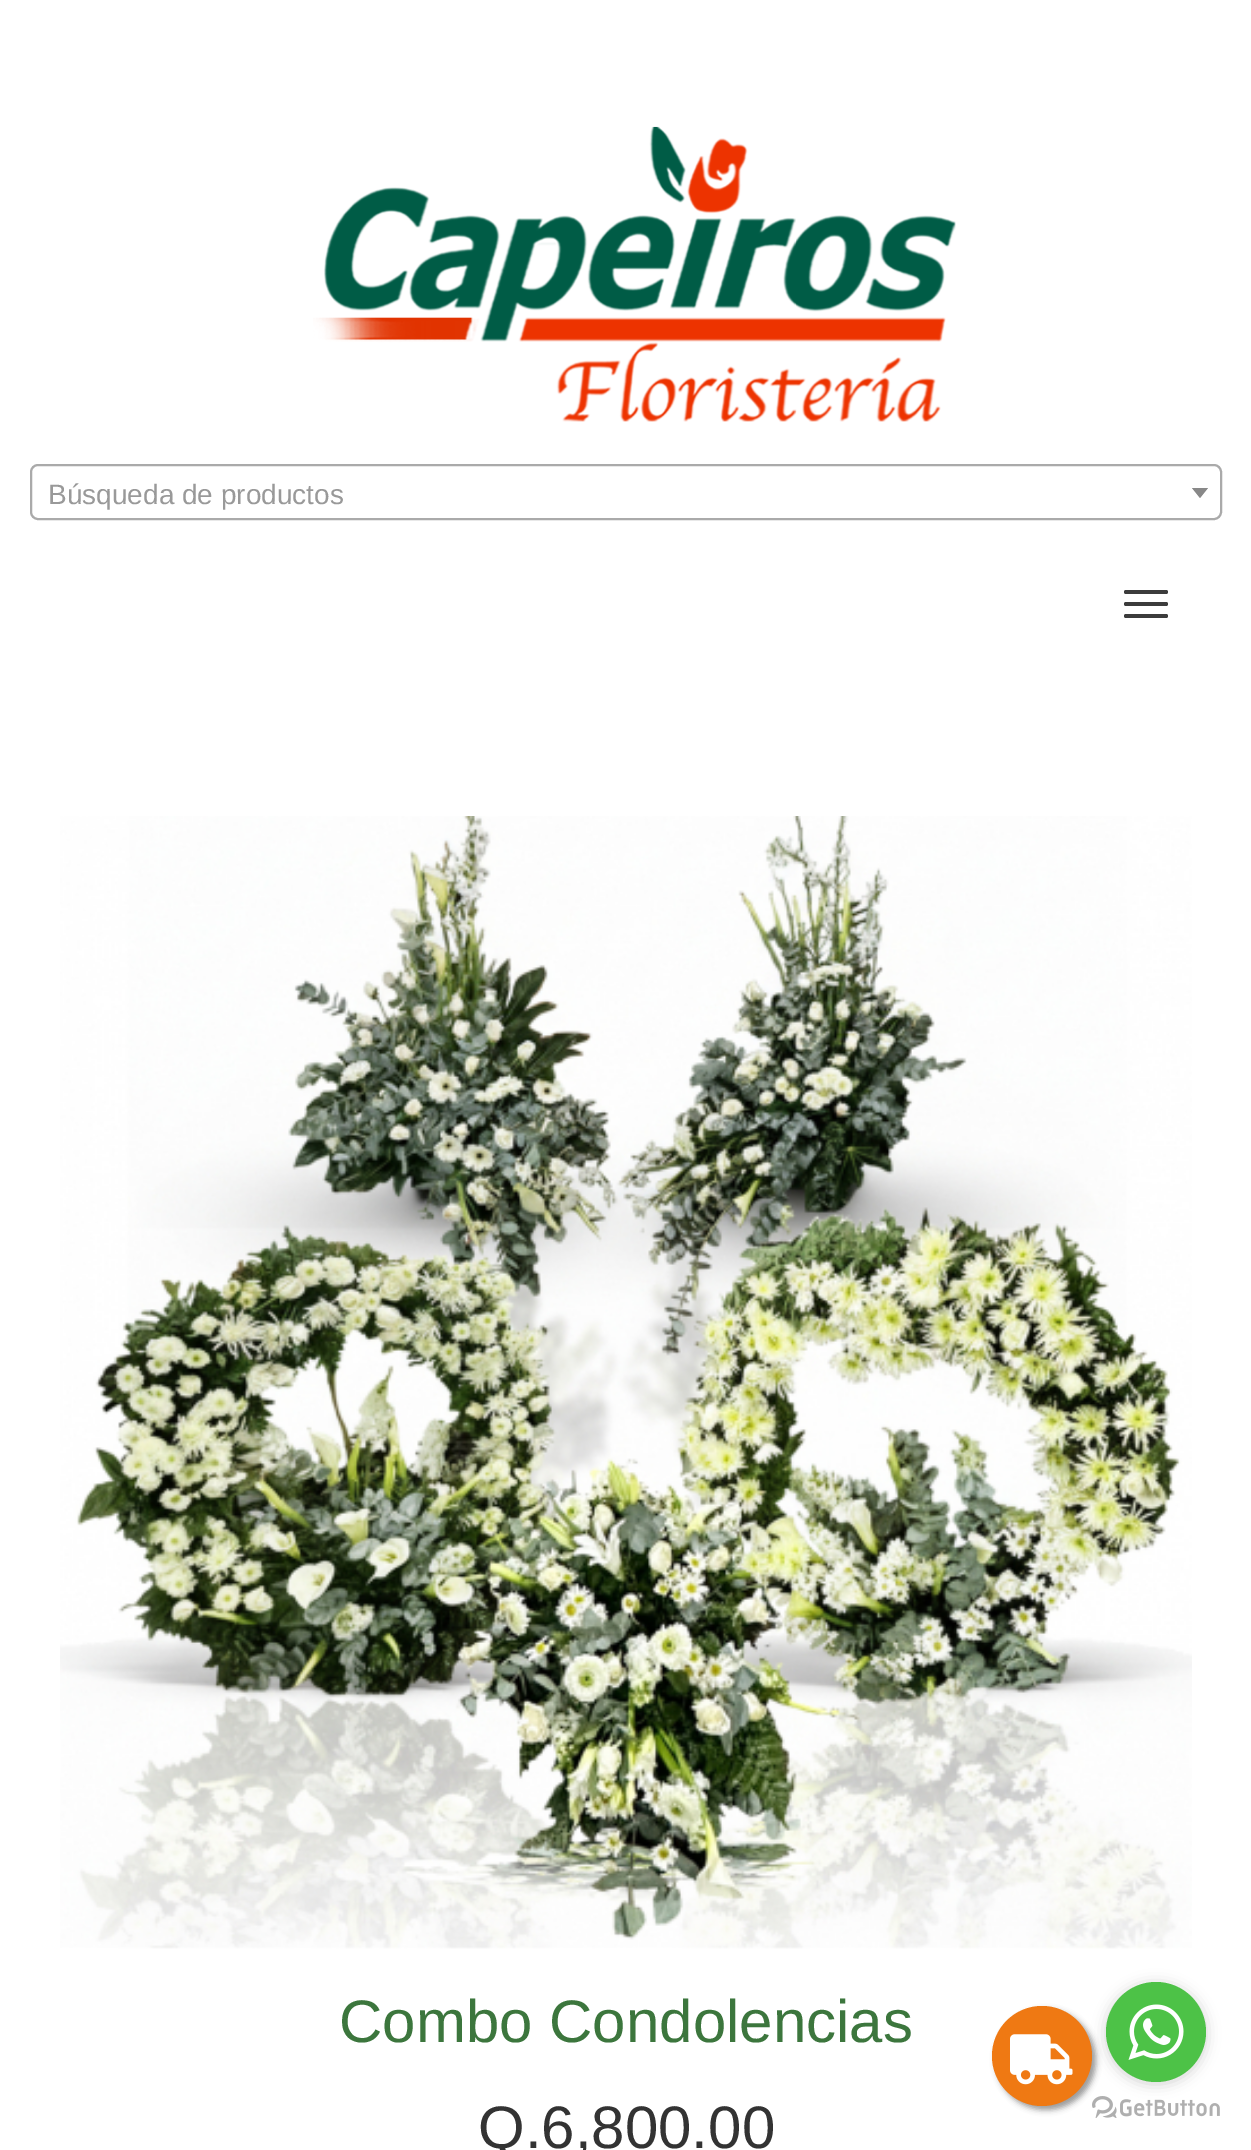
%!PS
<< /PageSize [1251 2150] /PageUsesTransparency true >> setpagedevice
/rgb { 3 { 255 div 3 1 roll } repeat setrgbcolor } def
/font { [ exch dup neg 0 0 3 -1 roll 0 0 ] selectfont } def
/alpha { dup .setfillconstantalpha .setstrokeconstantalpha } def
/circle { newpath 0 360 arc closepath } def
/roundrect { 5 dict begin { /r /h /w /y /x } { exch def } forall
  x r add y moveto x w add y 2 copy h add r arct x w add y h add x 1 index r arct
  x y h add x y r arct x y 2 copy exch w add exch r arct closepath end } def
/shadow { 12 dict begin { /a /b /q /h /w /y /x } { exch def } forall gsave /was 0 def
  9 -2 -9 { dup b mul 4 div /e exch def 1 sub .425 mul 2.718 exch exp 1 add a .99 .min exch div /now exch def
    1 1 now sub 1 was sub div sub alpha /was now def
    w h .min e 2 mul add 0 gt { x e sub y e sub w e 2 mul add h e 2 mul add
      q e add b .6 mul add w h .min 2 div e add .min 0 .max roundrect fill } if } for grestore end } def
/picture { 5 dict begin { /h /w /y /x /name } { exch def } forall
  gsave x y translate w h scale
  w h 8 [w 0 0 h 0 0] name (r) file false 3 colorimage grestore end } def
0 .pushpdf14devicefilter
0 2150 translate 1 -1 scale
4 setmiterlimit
255 255 255 rgb
0 0 1251 2150 rectfill
(img/1.rgb) 313 126 643 296 picture
170 170 170 rgb
2 setlinewidth
31 465 1190 54 7 roundrect stroke
136 136 136 rgb
1192 488 moveto 1208 488 lineto 1200 498 lineto closepath fill
60 60 60 rgb
1124 590 44 4 2 roundrect fill
1124 602 44 4 2 roundrect fill
1124 614 44 4 2 roundrect fill
(img/2.rgb) 60 816 1132 1133 picture
153 153 153 rgb
996 2010 100 100 50 3 1 shadow
239 121 19 rgb
1042 2056 50 circle fill
(img/3.rgb) 1010 2034 63 51 picture
(img/5.rgb) 1092 2096 128 22 picture
136 136 136 rgb
1106 1984 100 100 50 7 0.4 shadow
77 194 71 rgb
1156 2032 50 circle fill
(img/4.rgb) 1128 2004 56 56 picture
/LiberationSans-Regular 28 font
153 153 153 rgb
48 504 moveto (Búsqueda de productos) show
/LiberationSans-Regular 60 font
60 118 61 rgb
339 2042 moveto (Combo Condolencias) show
51 51 51 rgb
478 2148 moveto (Q.6,800.00) show
.poppdf14devicefilter showpage
